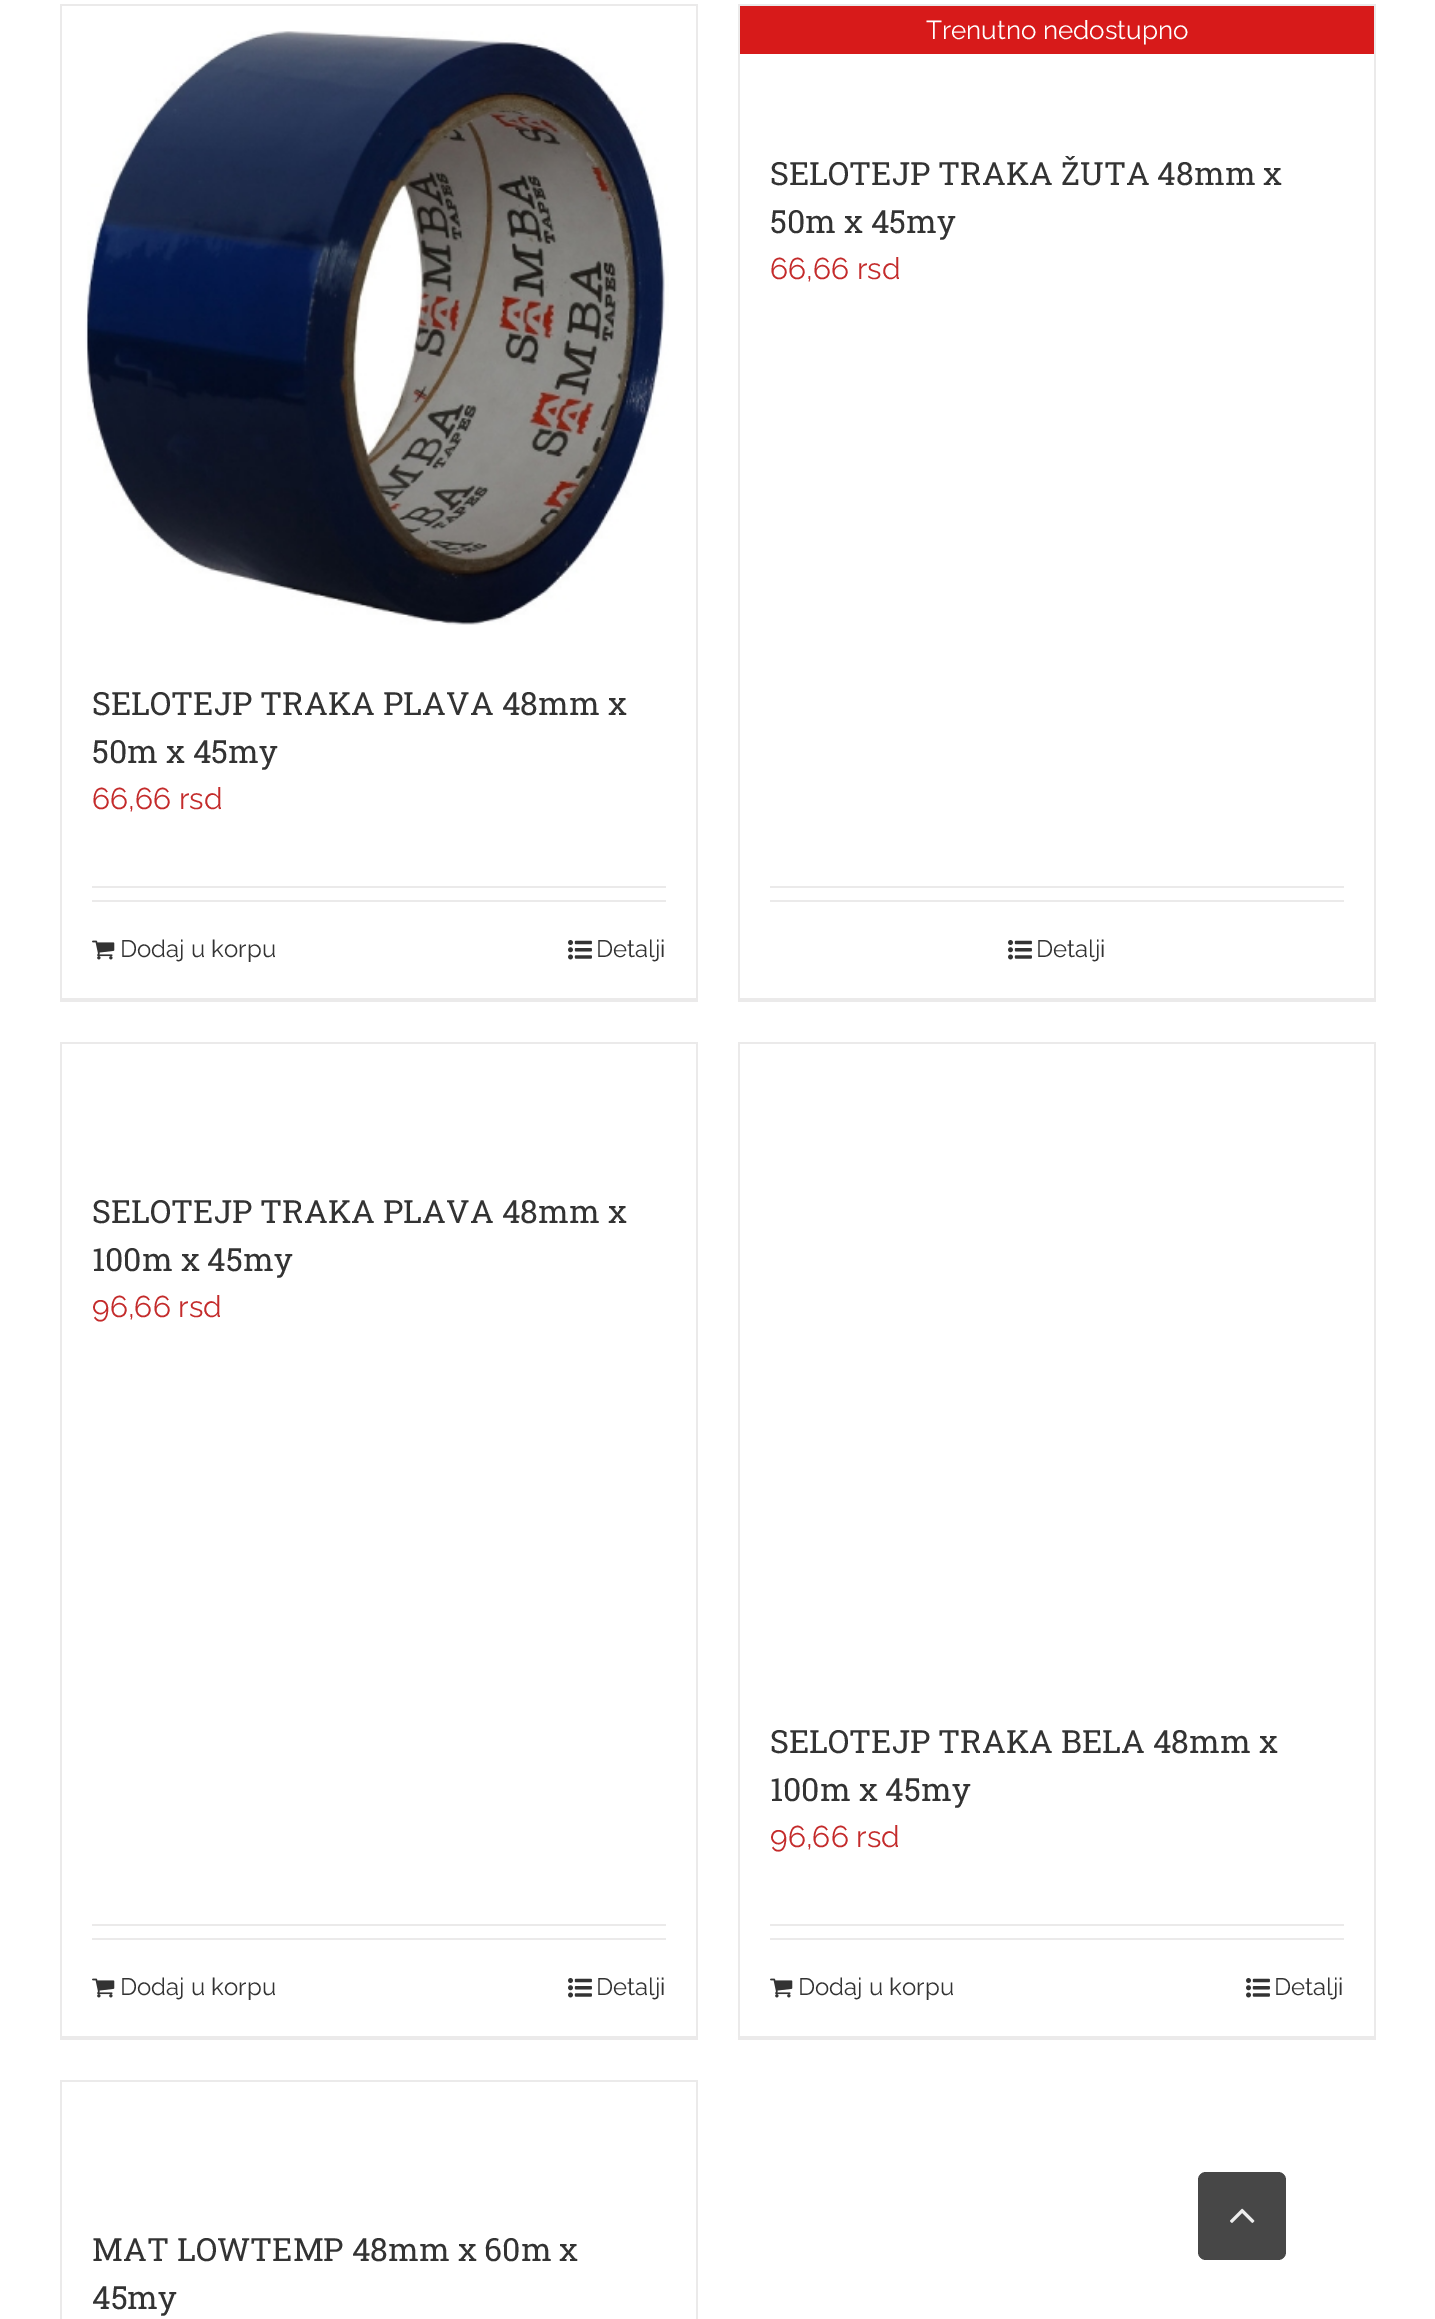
%!PS
<< /PageSize [1435 2319] >> setpagedevice
/rgb { 3 { 255 div 3 1 roll } repeat setrgbcolor } def
/font { [ exch dup neg 0 0 3 -1 roll 0 0 ] selectfont } def
/roundrect { 5 dict begin { /r /h /w /y /x } { exch def } forall
  x r add y moveto x w add y 2 copy h add r arct x w add y h add x 1 index r arct
  x y h add x y r arct x y 2 copy exch w add exch r arct closepath end } def
/picture { 5 dict begin { /h /w /y /x /name } { exch def } forall
  gsave x y translate w h scale
  w h 8 [w 0 0 h 0 0] name (r) file false 3 colorimage grestore end } def
0 2319 translate 1 -1 scale
4 setmiterlimit
255 255 255 rgb
0 0 1435 2319 rectfill
[
  [60 4 638 2 235 234 234]
  [696 4 2 998 235 234 234]
  [60 998 638 4 235 234 234]
  [60 4 2 998 235 234 234]
] { aload pop rgb rectfill } forall
(img/1.rgb) 85 31 584 594 picture
92 886 574 2 rectfill
92 900 574 2 rectfill
(img/2.rgb) 92 940 23 20 picture
(img/3.rgb) 568 940 24 20 picture
[
  [738 4 638 2 235 234 234]
  [1374 4 2 998 235 234 234]
  [738 998 638 4 235 234 234]
  [738 4 2 998 235 234 234]
  [740 6 634 48 215 26 26]
  [770 886 574 2 235 234 234]
  [770 900 574 2 235 234 234]
] { aload pop rgb rectfill } forall
(img/3.rgb) 1008 940 24 20 picture
[
  [60 1042 638 2 235 234 234]
  [696 1042 2 998 235 234 234]
  [60 2036 638 4 235 234 234]
  [60 1042 2 998 235 234 234]
  [92 1924 574 2 235 234 234]
  [92 1938 574 2 235 234 234]
] { aload pop rgb rectfill } forall
(img/2.rgb) 92 1978 23 20 picture
(img/3.rgb) 568 1978 24 20 picture
[
  [738 1042 638 2 235 234 234]
  [1374 1042 2 998 235 234 234]
  [738 2036 638 4 235 234 234]
  [738 1042 2 998 235 234 234]
  [770 1924 574 2 235 234 234]
  [770 1938 574 2 235 234 234]
] { aload pop rgb rectfill } forall
(img/2.rgb) 770 1978 23 20 picture
(img/3.rgb) 1246 1978 24 20 picture
[
  [60 2080 638 2 235 234 234]
  [696 2080 2 239 235 234 234]
  [60 2080 2 239 235 234 234]
] { aload pop rgb rectfill } forall
71 71 71 rgb
1198 2172 88 88 8 roundrect fill
(img/4.rgb) 1230 2208 25 15 picture
/RobotoSlab-Regular 32 font
51 51 51 rgb
92 715 moveto (SELOTEJP TRAKA PLAVA 48mm x) show
92 763 moveto (50m x 45my) show
/Raleway-Regular 30 font
196 43 43 rgb
92 809 moveto (66,66 rsd) show
/Raleway-Regular 24 font
51 51 51 rgb
120 957 moveto (Dodaj u korpu) show
596 957 moveto (Detalji) show
/Raleway-Regular 26 font
255 255 255 rgb
926 39 moveto (Trenutno nedostupno) show
/RobotoSlab-Regular 32 font
51 51 51 rgb
770 185 moveto (SELOTEJP TRAKA ŽUTA 48mm x) show
770 233 moveto (50m x 45my) show
/Raleway-Regular 30 font
196 43 43 rgb
770 279 moveto (66,66 rsd) show
/Raleway-Regular 24 font
51 51 51 rgb
1036 957 moveto (Detalji) show
/RobotoSlab-Regular 32 font
92 1223 moveto (SELOTEJP TRAKA PLAVA 48mm x) show
92 1271 moveto (100m x 45my) show
/Raleway-Regular 30 font
196 43 43 rgb
92 1317 moveto (96,66 rsd) show
/Raleway-Regular 24 font
51 51 51 rgb
120 1995 moveto (Dodaj u korpu) show
596 1995 moveto (Detalji) show
/RobotoSlab-Regular 32 font
770 1753 moveto (SELOTEJP TRAKA BELA 48mm x) show
770 1801 moveto (100m x 45my) show
/Raleway-Regular 30 font
196 43 43 rgb
770 1847 moveto (96,66 rsd) show
/Raleway-Regular 24 font
51 51 51 rgb
798 1995 moveto (Dodaj u korpu) show
1274 1995 moveto (Detalji) show
/RobotoSlab-Regular 32 font
92 2261 moveto (MAT LOWTEMP 48mm x 60m x) show
92 2309 moveto (45my) show
showpage
